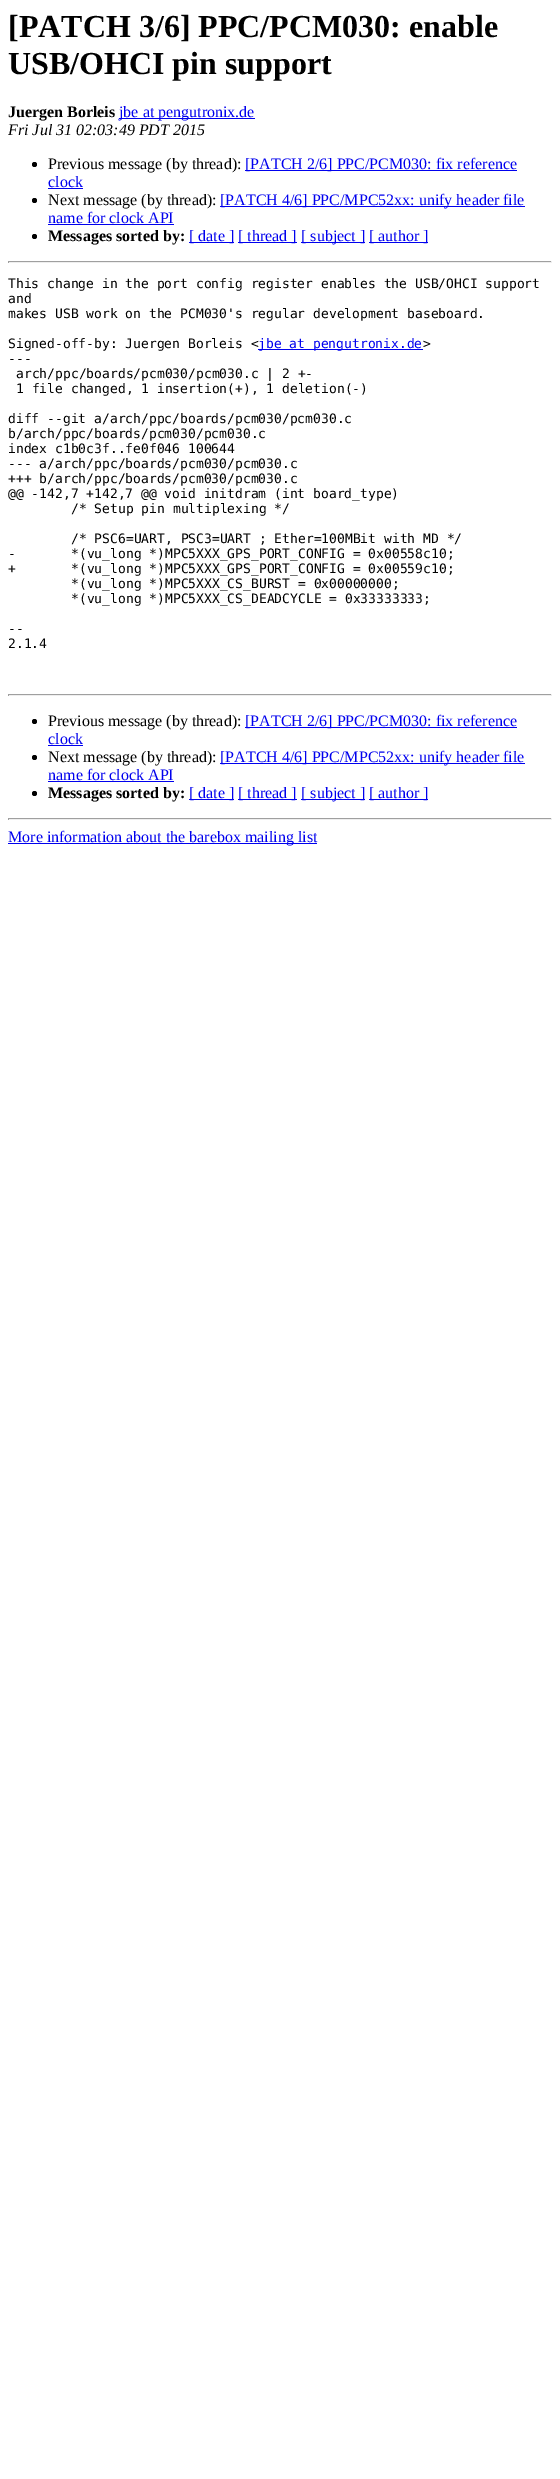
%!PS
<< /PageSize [560 2479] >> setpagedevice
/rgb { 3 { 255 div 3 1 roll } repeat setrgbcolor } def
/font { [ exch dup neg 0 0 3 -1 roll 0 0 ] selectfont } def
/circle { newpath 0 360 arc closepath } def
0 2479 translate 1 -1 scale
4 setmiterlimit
255 255 255 rgb
0 0 560 2479 rectfill
0 0 238 rgb
119 118 136 1 rectfill
0 0 0 rgb
34.5 164.5 2.5 circle fill
0 0 238 rgb
245 170 272 1 rectfill
48 188 35 1 rectfill
0 0 0 rgb
34.5 200.5 2.5 circle fill
0 0 238 rgb
220 206 305 1 rectfill
48 224 126 1 rectfill
0 0 0 rgb
34.5 236.5 2.5 circle fill
[
  [189 242 45 1 0 0 238]
  [238 242 59 1 0 0 238]
  [301 242 64 1 0 0 238]
  [369 242 59 1 0 0 238]
  [8 261 544 1 159 159 159]
  [551 261 1 2 238 238 238]
  [8 262 544 1 238 238 238]
  [8 261 1 2 159 159 159]
  [258 349 165 1 0 0 238]
  [8 694 544 1 159 159 159]
  [551 694 1 2 238 238 238]
  [8 695 544 1 238 238 238]
  [8 694 1 2 159 159 159]
] { aload pop rgb rectfill } forall
0 0 0 rgb
34.5 721.5 2.5 circle fill
0 0 238 rgb
245 727 272 1 rectfill
48 745 35 1 rectfill
0 0 0 rgb
34.5 757.5 2.5 circle fill
0 0 238 rgb
220 763 305 1 rectfill
48 781 126 1 rectfill
0 0 0 rgb
34.5 793.5 2.5 circle fill
[
  [189 799 45 1 0 0 238]
  [238 799 59 1 0 0 238]
  [301 799 64 1 0 0 238]
  [369 799 59 1 0 0 238]
  [8 818 544 1 159 159 159]
  [551 818 1 2 238 238 238]
  [8 819 544 1 238 238 238]
  [8 818 1 2 159 159 159]
  [8 843 309 1 0 0 238]
] { aload pop rgb rectfill } forall
/LiberationSerif-Bold 32 font
0 0 0 rgb
8 37 moveto ([PATCH 3/6] PPC/PCM030: enable) show
8 74 moveto (USB/OHCI pin support) show
/LiberationSerif-Bold 16 font
8 117 moveto (Juergen Borleis) show
/LiberationSerif-Regular 16 font
0 0 238 rgb
119 117 moveto (jbe at pengutronix.de) show
/LiberationSerif-Italic 16 font
0 0 0 rgb
8 135 moveto (Fri Jul 31 02:03:49 PDT 2015) show
/LiberationSerif-Regular 16 font
48 169 moveto (Previous message \(by thread\):) show
0 0 238 rgb
245 169 moveto ([PATCH 2/6] PPC/PCM030: fix reference) show
48 187 moveto (clock) show
0 0 0 rgb
48 205 moveto (Next message \(by thread\):) show
0 0 238 rgb
220 205 moveto ([PATCH 4/6] PPC/MPC52xx: unify header file) show
48 223 moveto (name for clock API) show
/LiberationSerif-Bold 16 font
0 0 0 rgb
48 241 moveto (Messages sorted by:) show
/LiberationSerif-Regular 16 font
0 0 238 rgb
[
  [([ date ]) 189 241]
  [([ thread ]) 238 241]
  [([ subject ]) 301 241]
  [([ author ]) 369 241]
] { aload pop moveto show } forall
/DejaVuSansMono-Regular 13 font
0 0 0 rgb
[
  [(This change in the port config register enables the USB/OHCI support) 8 288]
  [(and) 8 303]
  [(makes USB work on the PCM030's regular development baseboard.) 8 318]
  [(Signed-off-by: Juergen Borleis <) 8 348]
] { aload pop moveto show } forall
0 0 238 rgb
258 348 moveto (jbe at pengutronix.de) show
0 0 0 rgb
[
  [(>) 423 348]
  [(---) 8 363]
  [(arch/ppc/boards/pcm030/pcm030.c | 2 +-) 16 378]
  [(1 file changed, 1 insertion\(+\), 1 deletion\(-\)) 16 393]
  [(diff --git a/arch/ppc/boards/pcm030/pcm030.c) 8 423]
  [(b/arch/ppc/boards/pcm030/pcm030.c) 8 438]
  [(index c1b0c3f..fe0f046 100644) 8 453]
  [(--- a/arch/ppc/boards/pcm030/pcm030.c) 8 468]
  [(+++ b/arch/ppc/boards/pcm030/pcm030.c) 8 483]
  [(@@ -142,7 +142,7 @@ void initdram \(int board_type\)) 8 498]
  [(/* Setup pin multiplexing */) 71 513]
  [(/* PSC6=UART, PSC3=UART ; Ether=100MBit with MD */) 71 543]
  [(-) 8 558]
  [(*\(vu_long *\)MPC5XXX_GPS_PORT_CONFIG = 0x00558c10;) 71 558]
  [(+) 8 573]
  [(*\(vu_long *\)MPC5XXX_GPS_PORT_CONFIG = 0x00559c10;) 71 573]
  [(*\(vu_long *\)MPC5XXX_CS_BURST = 0x00000000;) 71 588]
  [(*\(vu_long *\)MPC5XXX_CS_DEADCYCLE = 0x33333333;) 71 603]
  [(--) 8 633]
  [(2.1.4) 8 648]
] { aload pop moveto show } forall
/LiberationSerif-Regular 16 font
48 726 moveto (Previous message \(by thread\):) show
0 0 238 rgb
245 726 moveto ([PATCH 2/6] PPC/PCM030: fix reference) show
48 744 moveto (clock) show
0 0 0 rgb
48 762 moveto (Next message \(by thread\):) show
0 0 238 rgb
220 762 moveto ([PATCH 4/6] PPC/MPC52xx: unify header file) show
48 780 moveto (name for clock API) show
/LiberationSerif-Bold 16 font
0 0 0 rgb
48 798 moveto (Messages sorted by:) show
/LiberationSerif-Regular 16 font
0 0 238 rgb
[
  [([ date ]) 189 798]
  [([ thread ]) 238 798]
  [([ subject ]) 301 798]
  [([ author ]) 369 798]
  [(More information about the barebox mailing list) 8 842]
] { aload pop moveto show } forall
showpage
